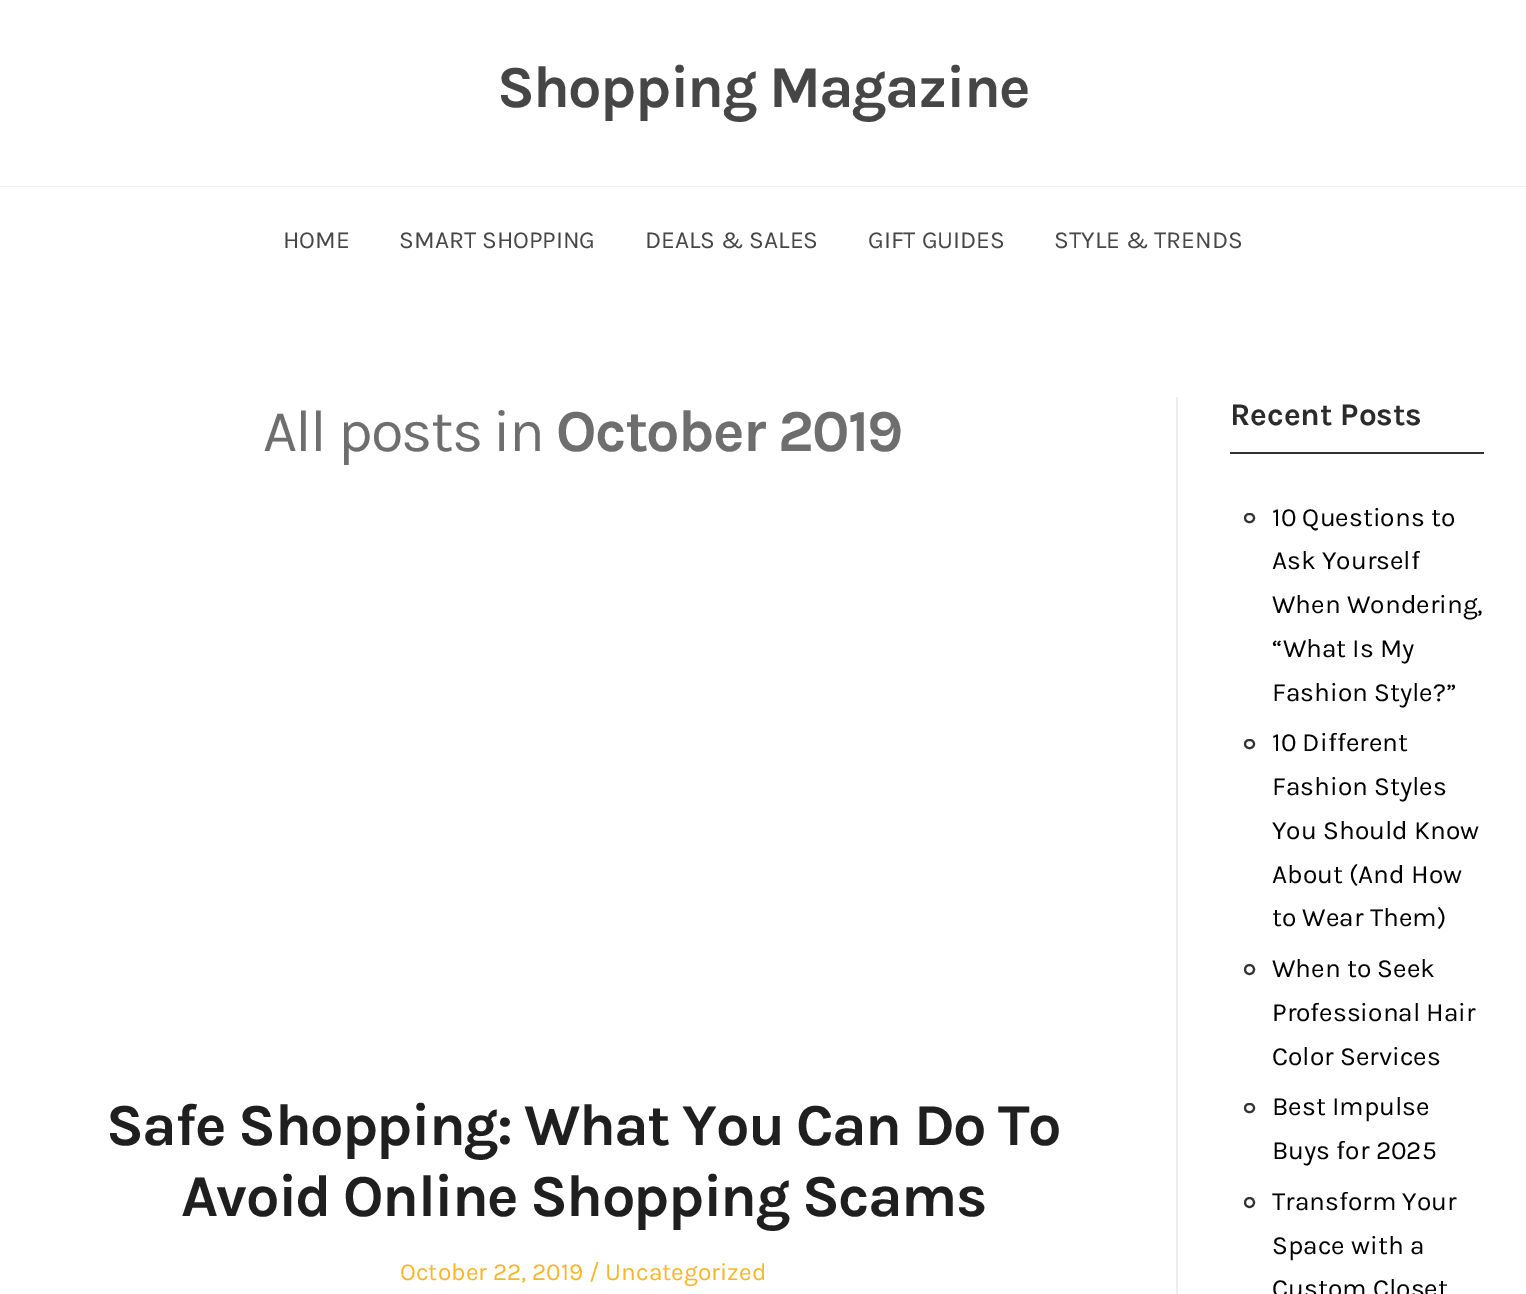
%!PS
<< /PageSize [1526 1294] >> setpagedevice
/rgb { 3 { 255 div 3 1 roll } repeat setrgbcolor } def
/font { [ exch dup neg 0 0 3 -1 roll 0 0 ] selectfont } def
/circle { newpath 0 360 arc closepath } def
/roundrect { 5 dict begin { /r /h /w /y /x } { exch def } forall
  x r add y moveto x w add y 2 copy h add r arct x w add y h add x 1 index r arct
  x y h add x y r arct x y 2 copy exch w add exch r arct closepath end } def
0 1294 translate 1 -1 scale
4 setmiterlimit
255 255 255 rgb
0 0 1526 1294 rectfill
[
  [0 186 1526 1 237 238 238]
  [1176 397 2 897 238 238 238]
  [1230 452 254 2 51 51 51]
] { aload pop rgb rectfill } forall
2 setlinewidth
1245 514 9 8 4 roundrect stroke
1245 740 9 8 4 roundrect stroke
1249.5 969.5 4.5 circle stroke
1245 1104 9 8 4 roundrect stroke
1249.5 1202.5 4.5 circle stroke
/Karla-Bold 59.5 font
70 70 70 rgb
497 107 moveto -1.75 0 (Shopping Magazine) ashow
/Karla-Regular 24.5 font
[
  [(HOME) 283 248]
  [(SMART SHOPPING) 399 248]
  [(DEALS & SALES) 645 248]
  [(GIFT GUIDES) 868 248]
  [(STYLE & TRENDS) 1054 248]
] { aload pop moveto show } forall
/Karla-Regular 59.5 font
110 110 110 rgb
263 451 moveto -1.75 0 (All posts in) ashow
/Karla-Bold 59.5 font
556 451 moveto -1.75 0 (October 2019) ashow
31 31 31 rgb
106 1145 moveto -1.75 0 (Safe Shopping: What You Can Do To) ashow
181 1216 moveto -1.75 0 (Avoid Online Shopping Scams) ashow
/Karla-Regular 24.5 font
250 181 38 rgb
400 1280 moveto (October 22, 2019 / Uncategorized) show
/Karla-Bold 31.5 font
43 43 43 rgb
1230 425 moveto (Recent Posts) show
/Karla-Regular 26.25 font
0 0 0 rgb
[
  [(10 Questions to) 1272 526]
  [(Ask Yourself) 1272 569]
  [(When Wondering,) 1272 613]
  [(“What Is My) 1272 657]
  [(Fashion Style?”) 1272 701]
  [(10 Different) 1272 751]
  [(Fashion Styles) 1272 795]
  [(You Should Know) 1272 839]
  [(About \(And How) 1272 883]
  [(to Wear Them\)) 1272 926]
  [(When to Seek) 1272 977]
  [(Professional Hair) 1272 1021]
  [(Color Services) 1272 1065]
  [(Best Impulse) 1272 1115]
  [(Buys for 2025) 1272 1159]
  [(Transform Your) 1272 1210]
  [(Space with a) 1272 1254]
  [(Custom Closet) 1272 1297]
] { aload pop moveto show } forall
showpage
